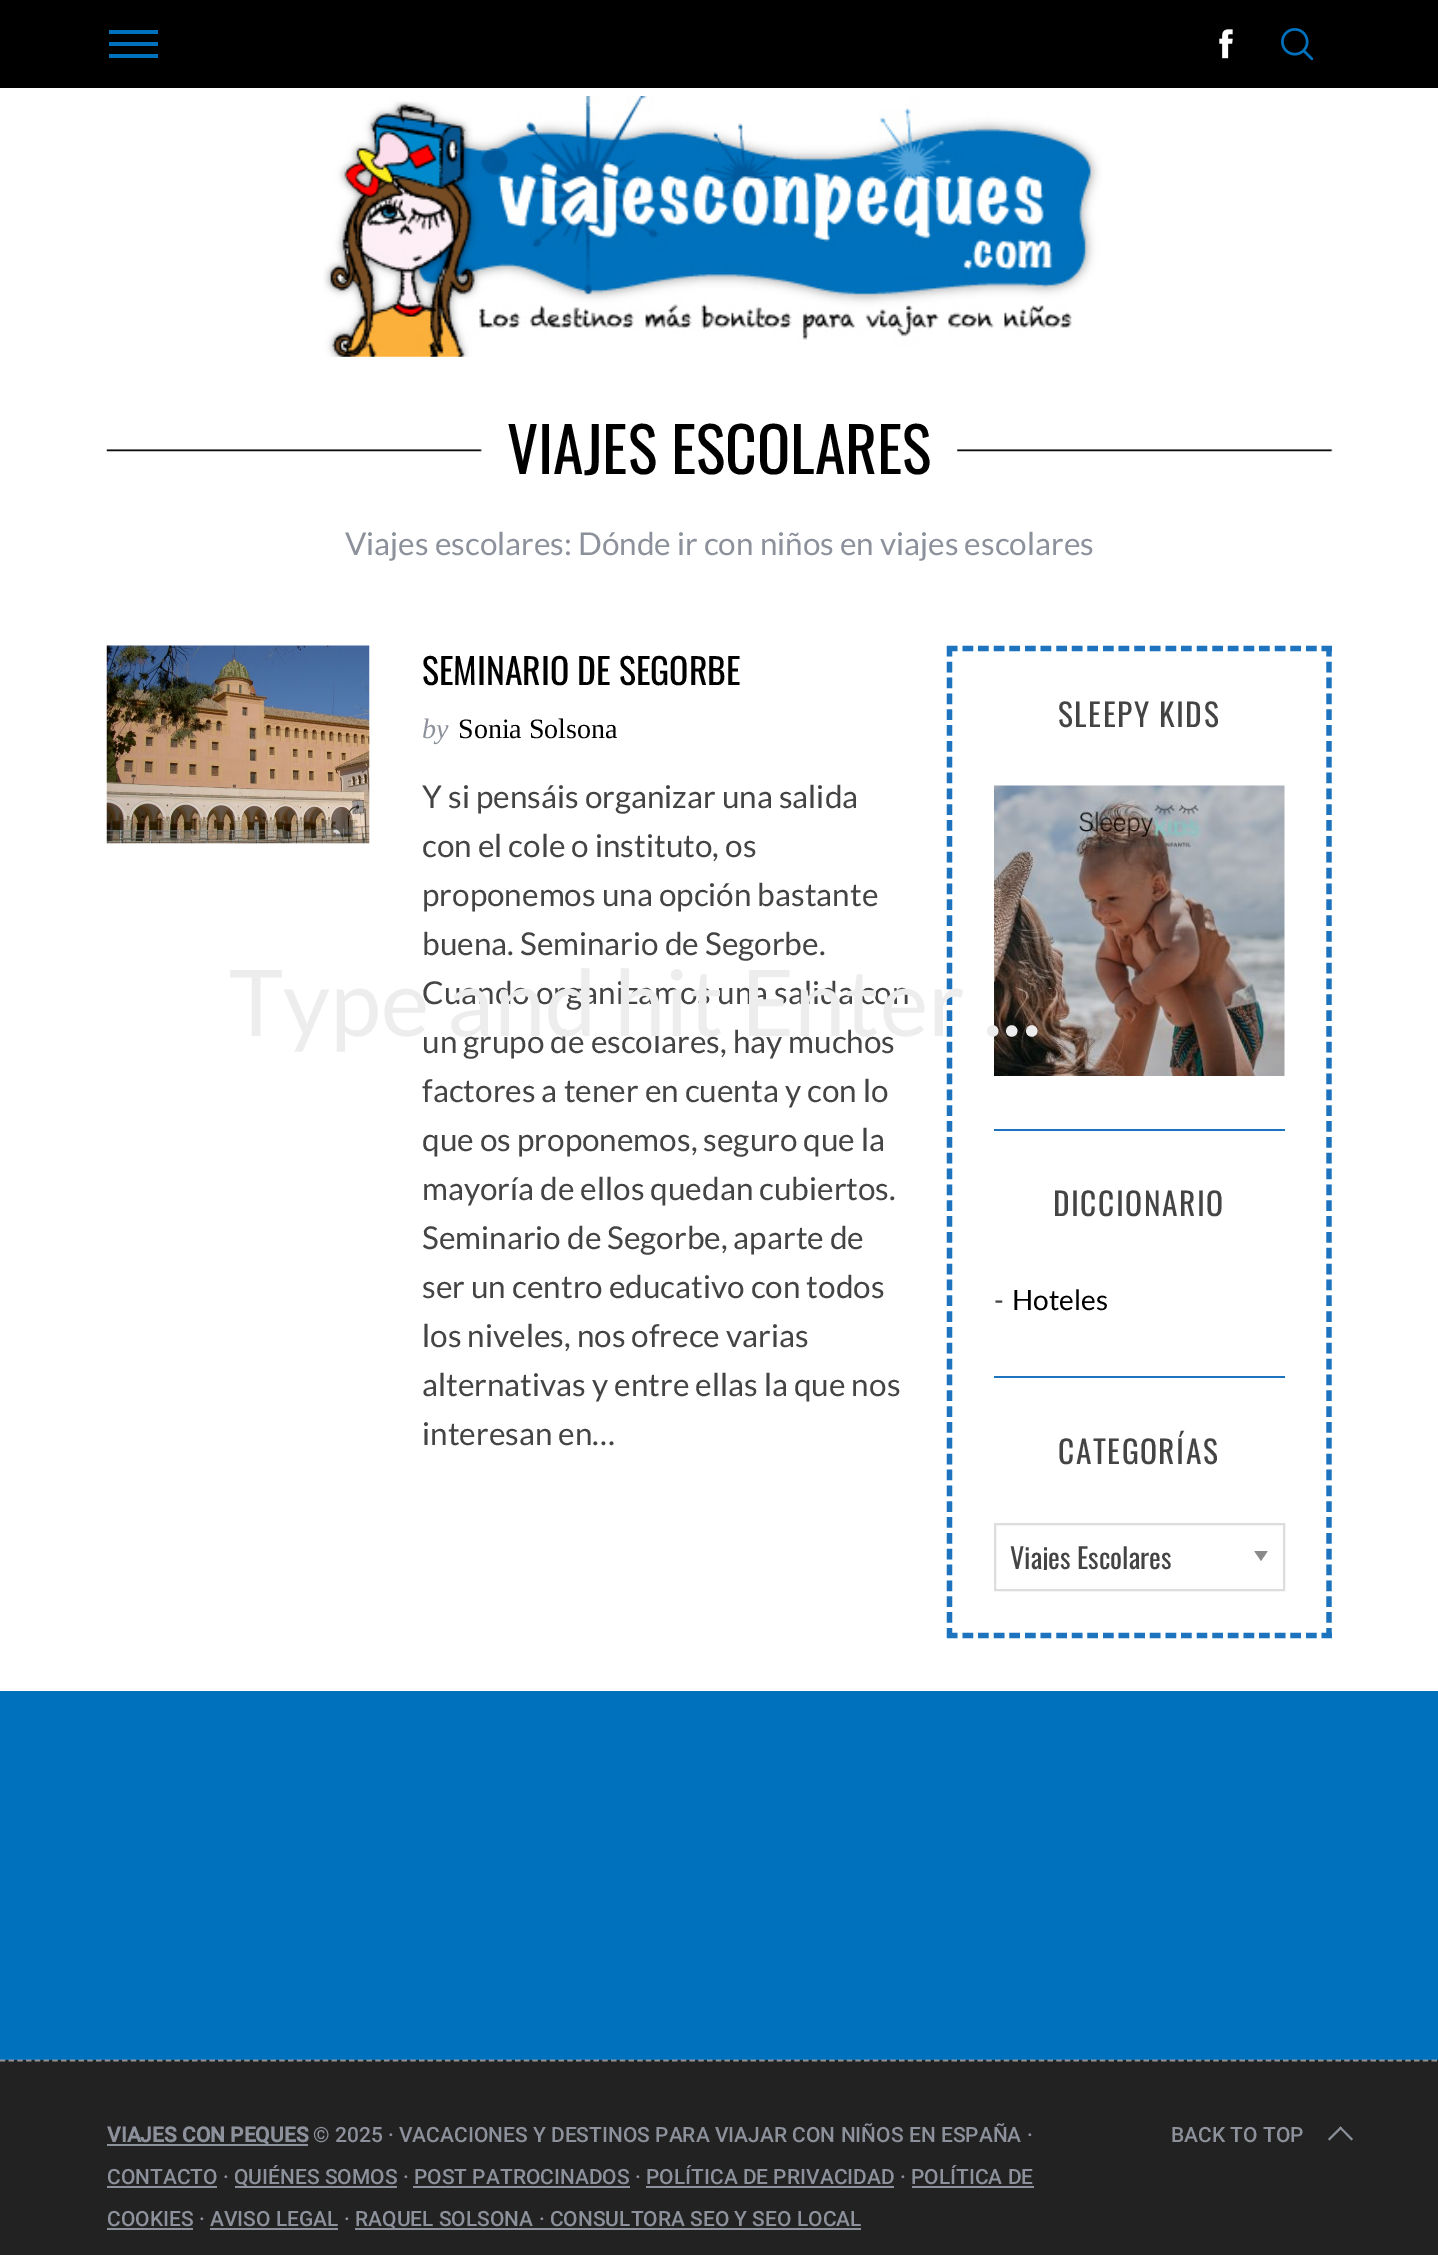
%!PS
<< /PageSize [1438 2255] >> setpagedevice
/rgb { 3 { 255 div 3 1 roll } repeat setrgbcolor } def
/font { [ exch dup neg 0 0 3 -1 roll 0 0 ] selectfont } def
/picture { 5 dict begin { /h /w /y /x /name } { exch def } forall
  gsave x y translate w h scale
  w h 8 [w 0 0 h 0 0] name (r) file false 3 colorimage grestore end } def
0 2255 translate 1 -1 scale
4 setmiterlimit
255 255 255 rgb
0 0 1438 2255 rectfill
[
  [0 0 1438 88 0 0 0]
  [109 42 49 4 0 113 189]
  [109 30 49 4 0 113 189]
  [109 54 49 4 0 113 189]
] { aload pop rgb rectfill } forall
(img/1.rgb) 1219 29 14 30 picture
(img/2.rgb) 1281 28 32 32 picture
(img/3.rgb) 323 96 779 261 picture
(img/4.rgb) 106 449 376 3 picture
(img/5.rgb) 957 449 376 3 picture
(img/6.rgb) 106 645 264 199 picture
30 115 190 rgb
5.2 setlinewidth
[10.5 5.11] 0 setdash
947 648.5 moveto 1332 648.5 lineto stroke
[10.5 5.34] 0 setdash
1329 646 moveto 1329 1638 lineto stroke
[10.5 5.11] 0 setdash
947 1635.5 moveto 1332 1635.5 lineto stroke
[10.5 5.34] 0 setdash
949.5 646 moveto 949.5 1638 lineto stroke
994 1129 291 2 rectfill
(img/7.rgb) 994 785 291 291 picture
994 1376 291 2 rectfill
gsave
1253 1551 16 10 rectclip
138 138 138 rgb
1254 1550.5 moveto 1268 1550.5 lineto 1261 1561 lineto closepath fill
grestore
221 221 221 rgb
2 setlinewidth
[] 0 setdash
995 1524 289 66 rectstroke
0 113 189 rgb
0 1691 1438 369 rectfill
34 34 34 rgb
0 2060 1438 195 rectfill
140 145 155 rgb
1.8 setlinewidth
[5.25 3.48] 0 setdash
0 2060.5 moveto 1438.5 2060.5 lineto stroke
[
  [107 2144 201 2 140 145 155]
  [107 2186 110 2 140 145 155]
  [235 2186 162 2 140 145 155]
  [413 2186 217 2 140 145 155]
  [646 2186 248 2 140 145 155]
  [912 2186 122 2 140 145 155]
  [107 2228 86 2 140 145 155]
  [355 2228 506 2 140 145 155]
  [210 2228 128 2 140 145 155]
] { aload pop rgb rectfill } forall
1328 2139 moveto 1340.5 2126.5 lineto 1342 2128 lineto 1329.5 2140.5 lineto closepath fill
1339.5 2128 moveto 1340.5 2126.5 lineto 1353 2139 lineto 1351.5 2140.5 lineto closepath fill
/Oswald-Regular 61.75 font
0 0 0 rgb
507 474 moveto (VIAJES ESCOLARES) show
/Lato-Regular 31.5 font
140 145 155 rgb
345 555 moveto (Viajes escolares: Dónde ir con niños en viajes escolares) show
/Oswald-Regular 35.75 font
0 0 0 rgb
422 685 moveto (SEMINARIO DE SEGORBE) show
/LiberationSerif-Italic 28 font
140 145 155 rgb
422 738 moveto (by) show
/LiberationSerif-Regular 28 font
0 0 0 rgb
458 738 moveto (Sonia Solsona) show
/Lato-Regular 31.5 font
68 68 68 rgb
[
  [(Y si pensáis organizar una salida) 422 808]
  [(con el cole o instituto, os) 422 857]
  [(proponemos una opción bastante) 422 906]
  [(buena. Seminario de Segorbe.) 422 955]
  [(Cuando organizamos una salida con) 422 1004]
  [(un grupo de escolares, hay muchos) 422 1053]
  [(factores a tener en cuenta y con lo) 422 1102]
  [(que os proponemos, seguro que la) 422 1151]
  [(mayoría de ellos quedan cubiertos.) 422 1200]
  [(Seminario de Segorbe, aparte de) 422 1249]
  [(ser un centro educativo con todos) 422 1298]
  [(los niveles, nos ofrece varias) 422 1347]
  [(alternativas y entre ellas la que nos) 422 1396]
  [(interesan en…) 422 1445]
] { aload pop moveto show } forall
/Oswald-Regular 31.5 font
1058 727 moveto 1.5 0 (SLEEPY KIDS) ashow
1053 1216 moveto 1.5 0 (DICCIONARIO) ashow
/Lato-Regular 28 font
994 1310 moveto (-) show
0 0 0 rgb
1012 1310 moveto (Hoteles) show
/Oswald-Regular 31.5 font
68 68 68 rgb
1058 1464 moveto 1.5 0 (CATEGORÍAS) ashow
gsave
1010 1542 231 28 rectclip
/Oswald-Regular 28 font
1010 1569 moveto (Viajes Escolares) show
grestore
/Lato-Regular 92 font
237 237 237 rgb
229 1036 moveto (Type and hit Enter ...) show
/Roboto-Bold 21 font
140 145 155 rgb
107 2142 moveto (VIAJES CON PEQUES) show
/Roboto-Medium 21 font
[
  [(© 2025 · VACACIONES Y DESTINOS PARA VIAJAR CON NIÑOS EN ESPAÑA ·) 313 2142]
  [(CONTACTO ·) 107 2184]
  [(QUIÉNES SOMOS · POST PATROCINADOS · POLÍTICA DE PRIVACIDAD · POLÍTICA DE) 234 2184]
  [(COOKIES · AVISO LEGAL ·) 107 2226]
  [(RAQUEL SOLSONA · CONSULTORA SEO Y SEO LOCAL) 355 2226]
  [(BACK TO TOP) 1171 2142]
] { aload pop moveto show } forall
showpage
